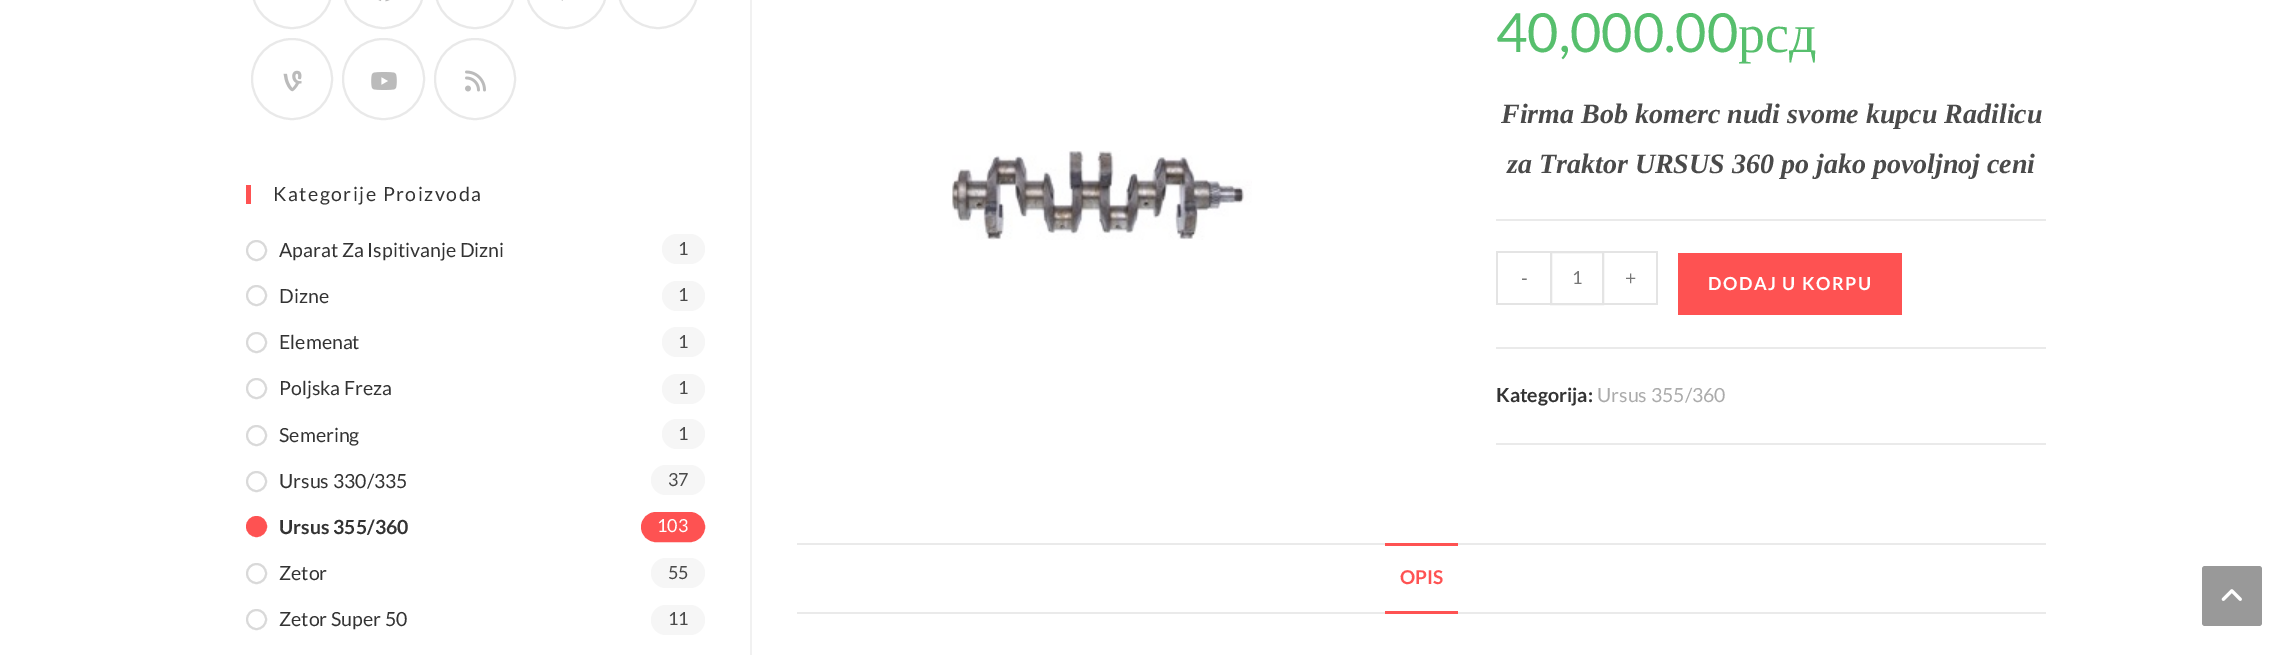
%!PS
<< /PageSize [2291 655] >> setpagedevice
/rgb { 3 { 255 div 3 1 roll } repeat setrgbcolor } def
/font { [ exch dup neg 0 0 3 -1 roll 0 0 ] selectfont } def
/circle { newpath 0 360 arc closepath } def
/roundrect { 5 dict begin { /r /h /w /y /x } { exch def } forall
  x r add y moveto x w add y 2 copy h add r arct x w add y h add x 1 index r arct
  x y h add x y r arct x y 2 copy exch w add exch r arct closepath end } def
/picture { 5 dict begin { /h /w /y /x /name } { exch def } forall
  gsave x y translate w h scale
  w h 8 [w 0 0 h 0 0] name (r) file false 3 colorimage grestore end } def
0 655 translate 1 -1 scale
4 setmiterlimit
255 255 255 rgb
0 0 2291 655 rectfill
233 233 233 rgb
2 setlinewidth
252 -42 80 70 40 roundrect stroke
343 -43 81 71 40.5 roundrect stroke
(img/1.rgb) 378 0 12 2 picture
435 -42 80 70 40 roundrect stroke
526 -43 81 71 40.5 roundrect stroke
(img/2.rgb) 561 0 2 1 picture
618 -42 80 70 40 roundrect stroke
292 79 40 circle stroke
(img/3.rgb) 283 70 19 22 picture
343 39 81 80 40 roundrect stroke
(img/4.rgb) 371 72 26 18 picture
475 79 40 circle stroke
(img/5.rgb) 465 70 21 22 picture
254 82 82 rgb
246 185 5 19 rectfill
217 217 217 rgb
256.5 250.5 9.5 circle stroke
246 246 246 rgb
662 234 43 30 15 roundrect fill
217 217 217 rgb
256.5 295.5 9.5 circle stroke
246 246 246 rgb
662 281 43 30 15 roundrect fill
217 217 217 rgb
256.5 342.5 9.5 circle stroke
246 246 246 rgb
662 327 43 30 15 roundrect fill
217 217 217 rgb
256.5 388.5 9.5 circle stroke
246 246 246 rgb
662 374 43 30 15 roundrect fill
217 217 217 rgb
256.5 435.5 9.5 circle stroke
246 246 246 rgb
662 419 43 30 15 roundrect fill
217 217 217 rgb
256.5 481.5 9.5 circle stroke
246 246 246 rgb
651 465 54 30 15 roundrect fill
254 82 82 rgb
256.5 526.5 9.5 circle gsave fill grestore
stroke
642 513 62 28 14 roundrect gsave fill grestore
stroke
217 217 217 rgb
256.5 573.5 9.5 circle stroke
246 246 246 rgb
651 558 54 30 15 roundrect fill
217 217 217 rgb
256.5 619.5 9.5 circle stroke
246 246 246 rgb
651 605 54 30 15 roundrect fill
241 241 241 rgb
750 0 2 655 rectfill
(img/6.rgb) 952 150 300 90 picture
[
  [1496 219 550 2 234 234 234]
  [1496 347 550 2 234 234 234]
  [1496 251 54 2 228 228 228]
  [1496 303 54 2 228 228 228]
  [1496 251 2 54 228 228 228]
] { aload pop rgb rectfill } forall
1551 252 52 52 rectstroke
[
  [1604 251 54 2 228 228 228]
  [1656 251 2 54 228 228 228]
  [1604 303 54 2 228 228 228]
  [1678 253 224 62 254 82 82]
  [1496 443 550 2 234 234 234]
  [797 543 1249 2 234 234 234]
  [797 612 1249 2 234 234 234]
  [1385 543 73 3 254 82 82]
  [1385 611 73 3 254 82 82]
] { aload pop rgb rectfill } forall
153 153 153 rgb
2202 566 60 60 3 roundrect fill
(img/7.rgb) 2221 589 21 12 picture
/Lato-Regular 19.5 font
51 51 51 rgb
273 201 moveto 1.5 0 (Kategorije Proizvoda) ashow
279 257 moveto (Aparat Za Ispitivanje Dizni) show
/Lato-Regular 18 font
74 74 74 rgb
678 255 moveto (1) show
/Lato-Regular 19.5 font
51 51 51 rgb
279 303 moveto (Dizne) show
/Lato-Regular 18 font
74 74 74 rgb
678 301 moveto (1) show
/Lato-Regular 19.5 font
51 51 51 rgb
279 349 moveto (Elemenat) show
/Lato-Regular 18 font
74 74 74 rgb
678 348 moveto (1) show
/Lato-Regular 19.5 font
51 51 51 rgb
279 395 moveto (Poljska Freza) show
/Lato-Regular 18 font
74 74 74 rgb
678 394 moveto (1) show
/Lato-Regular 19.5 font
51 51 51 rgb
279 442 moveto (Semering) show
/Lato-Regular 18 font
74 74 74 rgb
678 440 moveto (1) show
/Lato-Regular 19.5 font
51 51 51 rgb
279 488 moveto (Ursus 330/335) show
/Lato-Regular 18 font
74 74 74 rgb
668 486 moveto (37) show
/Lato-Bold 19.5 font
51 51 51 rgb
279 534 moveto (Ursus 355/360) show
/Lato-Regular 18 font
255 255 255 rgb
657 532 moveto (103) show
/Lato-Regular 19.5 font
51 51 51 rgb
279 580 moveto (Zetor) show
/Lato-Regular 18 font
74 74 74 rgb
668 579 moveto (55) show
/Lato-Regular 19.5 font
51 51 51 rgb
279 626 moveto (Zetor Super 50) show
/Lato-Regular 18 font
74 74 74 rgb
668 625 moveto (11) show
/Lato-Regular 54 font
87 191 109 rgb
1496 52 moveto (40,000.00) show
/LiberationSerif-Regular 54 font
1738 52 moveto (рсд) show
/LiberationSerif-BoldItalic 28 font
74 74 74 rgb
1501 123 moveto (Firma Bob komerc nudi svome kupcu Radilicu) show
1507 173 moveto (za Traktor URSUS 360 po jako povoljnoj ceni) show
/Lato-Regular 19.5 font
119 119 119 rgb
1521 285 moveto (-) show
/Lato-Regular 18 font
1572 284 moveto (1) show
/Lato-Regular 19.5 font
1625 285 moveto (+) show
/Lato-Bold 18 font
255 255 255 rgb
1708 290 moveto 1.5 0 (DODAJ U KORPU) ashow
/Lato-Bold 19.5 font
51 51 51 rgb
1496 402 moveto (Kategorija:) show
/Lato-Regular 19.5 font
171 171 171 rgb
1597 402 moveto (Ursus 355/360) show
/Lato-Bold 19 font
254 82 82 rgb
1400 584 moveto (OPIS) show
showpage
